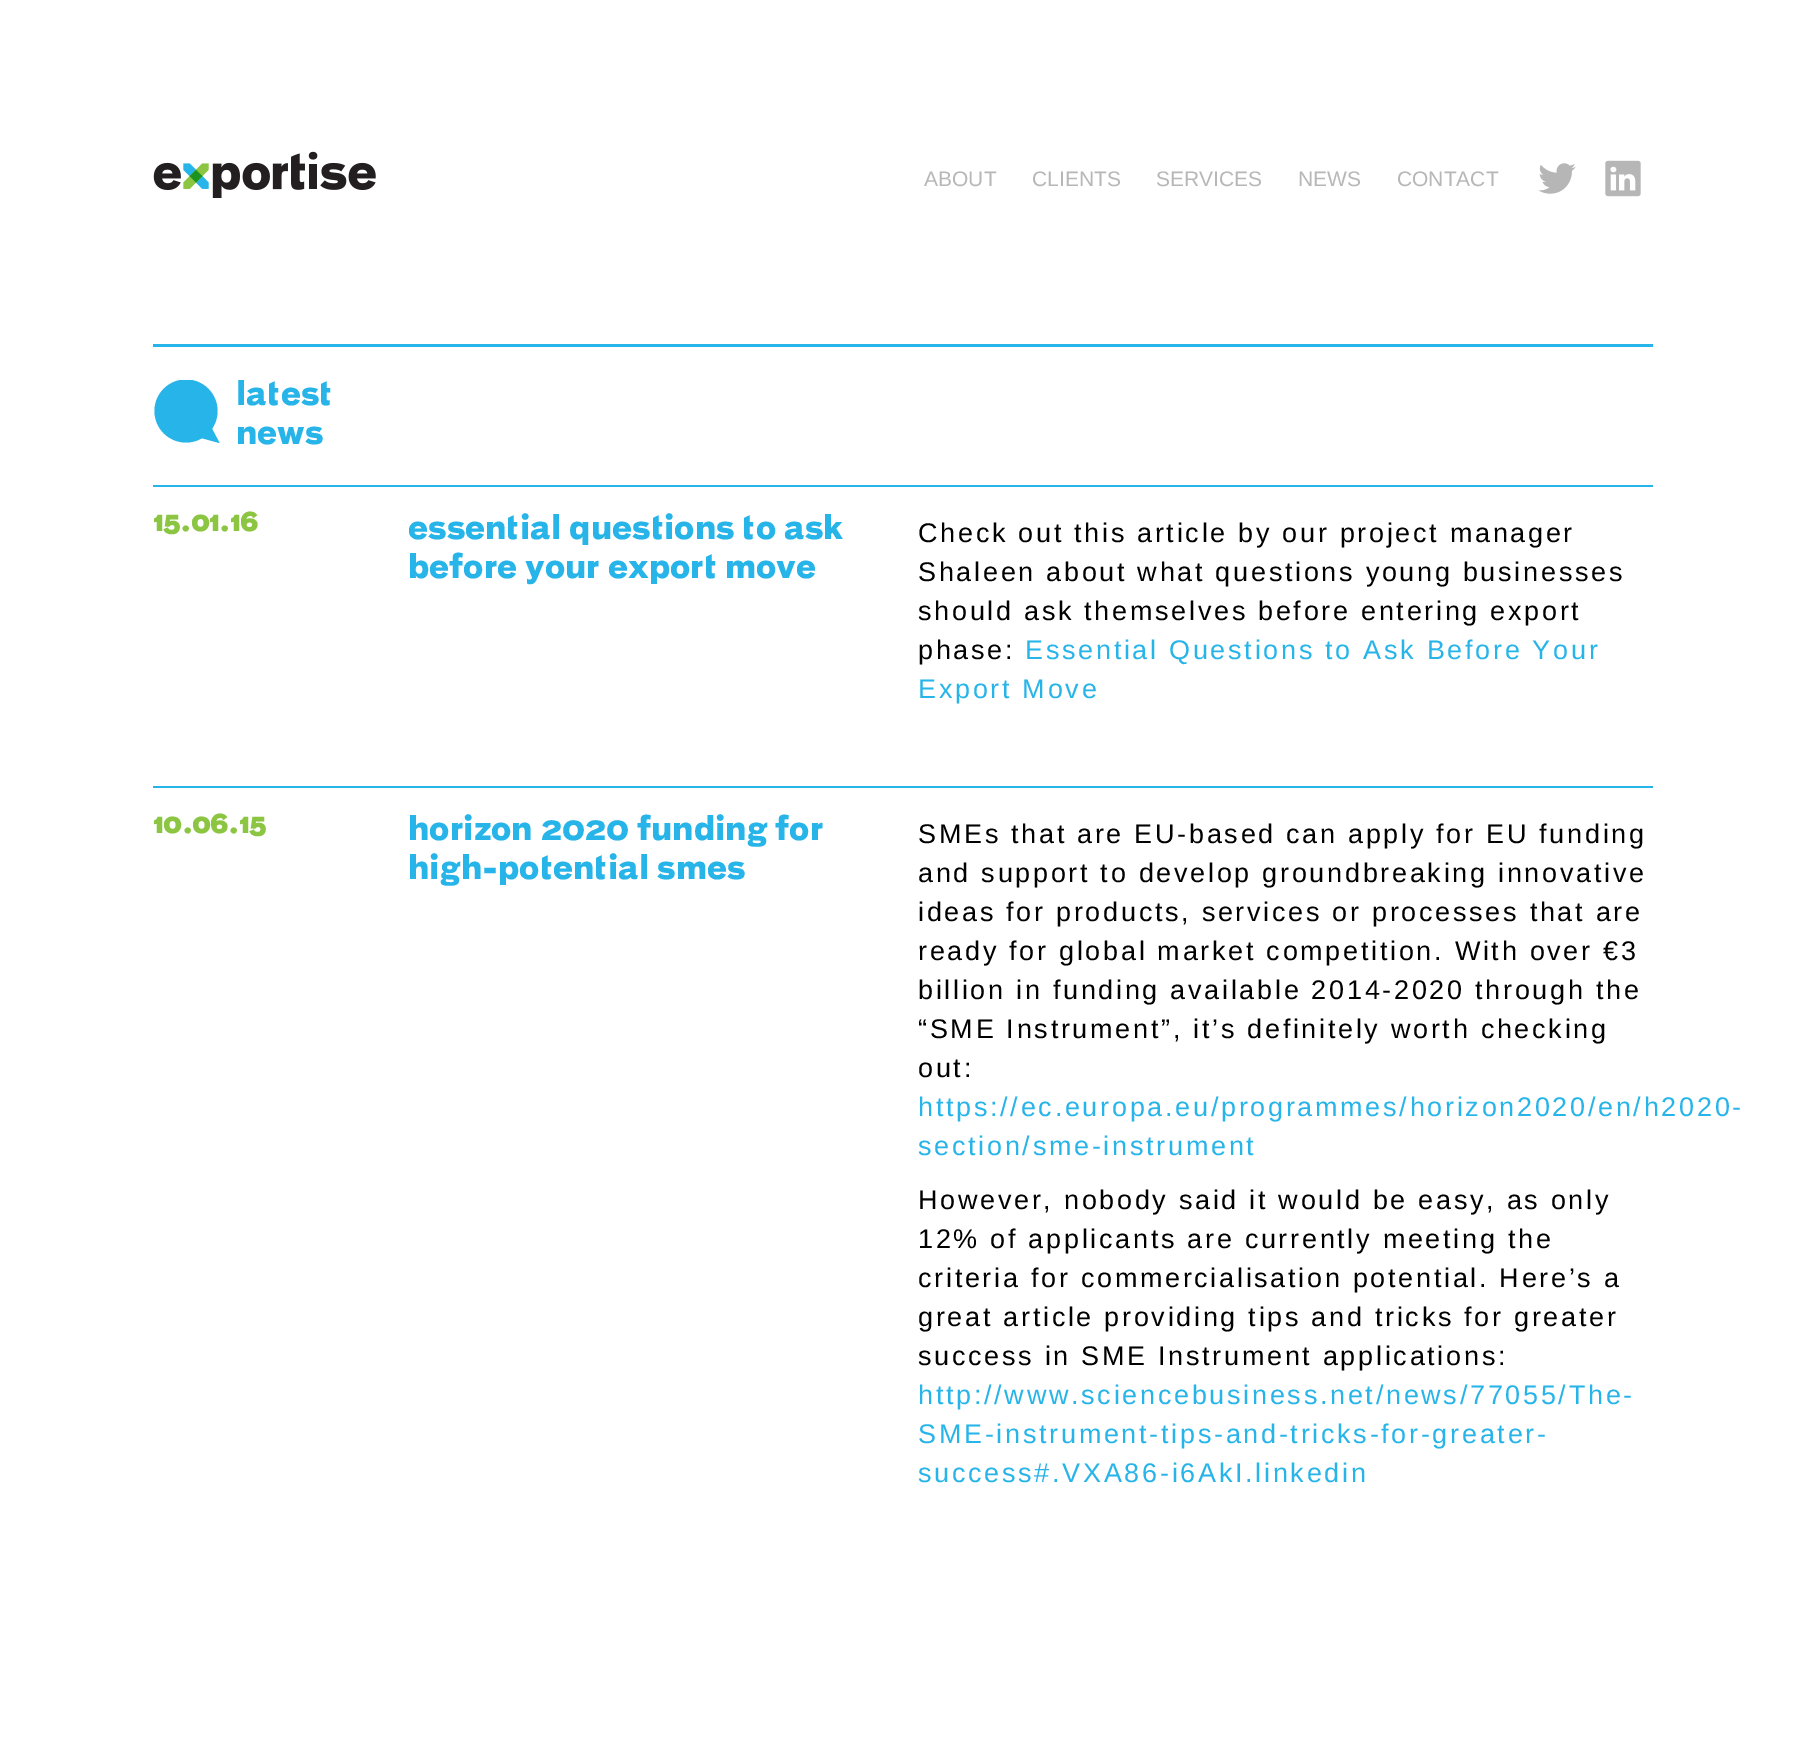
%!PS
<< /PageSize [1805 1758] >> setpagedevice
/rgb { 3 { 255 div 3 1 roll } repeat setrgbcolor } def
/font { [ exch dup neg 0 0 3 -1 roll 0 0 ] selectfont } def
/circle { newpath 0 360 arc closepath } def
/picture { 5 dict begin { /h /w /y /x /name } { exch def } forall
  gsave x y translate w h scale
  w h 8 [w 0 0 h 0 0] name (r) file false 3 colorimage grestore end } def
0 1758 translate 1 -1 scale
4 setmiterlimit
255 255 255 rgb
0 0 1805 1758 rectfill
(img/1.rgb) 153 151 223 47 picture
(img/2.rgb) 1538 163 38 31 picture
(img/3.rgb) 1605 160 36 37 picture
39 180 232 rgb
153 344 1500 3 rectfill
gsave
153 380 68 67 rectclip
186 411 31.5 circle fill
grestore
37 181 233 rgb
197.5 437 moveto 219.5 443 lineto 208 421 lineto closepath fill
39 180 232 rgb
153 485 1500 2 rectfill
153 786 1500 2 rectfill
/LiberationSans-Regular 21 font
183 183 183 rgb
[
  [(ABOUT) 924 186]
  [(CLIENTS) 1032 186]
  [(SERVICES) 1156 186]
  [(NEWS) 1298 186]
  [(CONTACT) 1397 186]
] { aload pop moveto show } forall
/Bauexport-Regular 33 font
39 180 232 rgb
236 405 moveto (latest) show
236 444 moveto (news) show
/Bauexport-Bold 26.25 font
139 197 65 rgb
153 531 moveto (15.01.16) show
/Bauexport-Regular 33 font
39 180 232 rgb
408 539 moveto (essential questions to ask) show
408 578 moveto (before your export move) show
/LiberationSans-Regular 27 font
0 0 0 rgb
918 542 moveto 2.7 0 (Check out this article by our project manager) ashow
918 581 moveto 2.7 0 (Shaleen about what questions young businesses) ashow
918 620 moveto 2.7 0 (should ask themselves before entering export) ashow
918 659 moveto 2.7 0 (phase:) ashow
39 180 232 rgb
1025 659 moveto 2.7 0 (Essential Questions to Ask Before Your) ashow
918 698 moveto 2.7 0 (Export Move) ashow
/Bauexport-Bold 26.25 font
139 197 65 rgb
153 833 moveto (10.06.15) show
/Bauexport-Regular 33 font
39 180 232 rgb
408 840 moveto (horizon 2020 funding for) show
408 879 moveto (high-potential smes) show
/LiberationSans-Regular 27 font
0 0 0 rgb
918 843 moveto 2.7 0 (SMEs that are EU-based can apply for EU funding) ashow
918 882 moveto 2.7 0 (and support to develop groundbreaking innovative) ashow
918 921 moveto 2.7 0 (ideas for products, services or processes that are) ashow
918 960 moveto 2.7 0 (ready for global market competition. With over €3) ashow
918 999 moveto 2.7 0 (billion in funding available 2014-2020 through the) ashow
918 1038 moveto 2.7 0 (“SME Instrument”, it’s definitely worth checking) ashow
918 1077 moveto 2.7 0 (out:) ashow
39 180 232 rgb
918 1116 moveto 2.7 0 (https://ec.europa.eu/programmes/horizon2020/en/h2020-) ashow
918 1155 moveto 2.7 0 (section/sme-instrument) ashow
0 0 0 rgb
918 1209 moveto 2.7 0 (However, nobody said it would be easy, as only) ashow
918 1248 moveto 2.7 0 (12% of applicants are currently meeting the) ashow
918 1287 moveto 2.7 0 (criteria for commercialisation potential. Here’s a) ashow
918 1326 moveto 2.7 0 (great article providing tips and tricks for greater) ashow
918 1365 moveto 2.7 0 (success in SME Instrument applications:) ashow
39 180 232 rgb
918 1404 moveto 2.7 0 (http://www.sciencebusiness.net/news/77055/The-) ashow
918 1443 moveto 2.7 0 (SME-instrument-tips-and-tricks-for-greater-) ashow
918 1482 moveto 2.7 0 (success#.VXA86-i6AkI.linkedin) ashow
showpage
